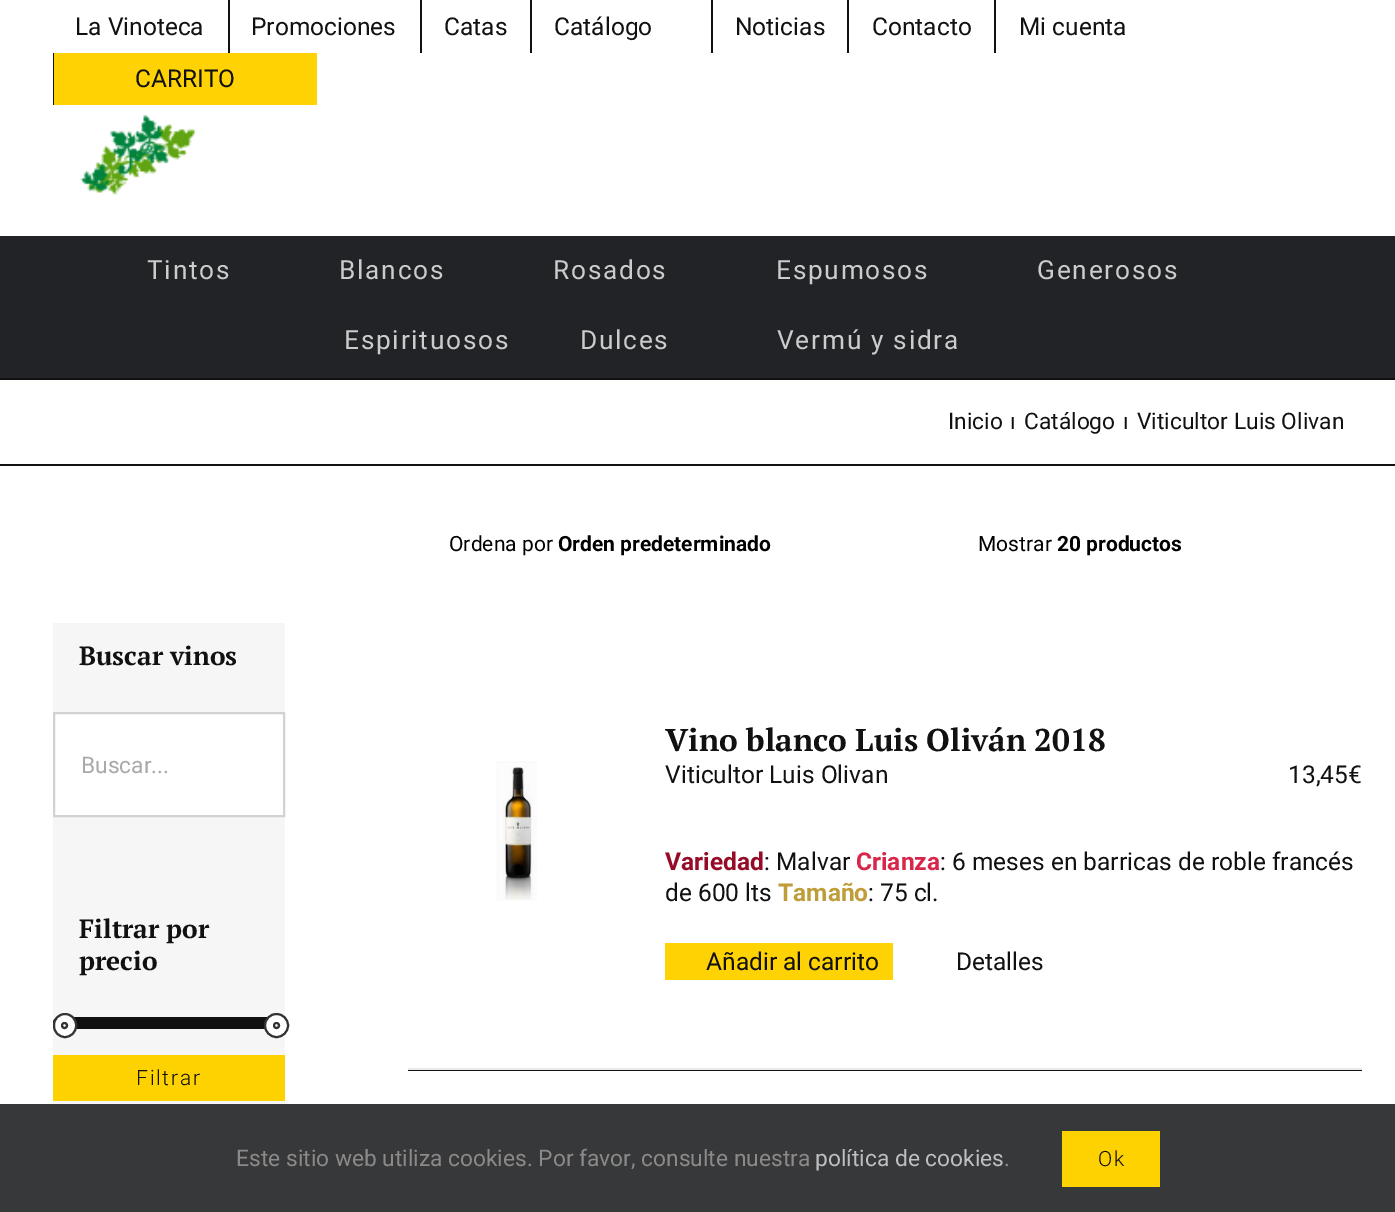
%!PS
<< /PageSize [1395 1212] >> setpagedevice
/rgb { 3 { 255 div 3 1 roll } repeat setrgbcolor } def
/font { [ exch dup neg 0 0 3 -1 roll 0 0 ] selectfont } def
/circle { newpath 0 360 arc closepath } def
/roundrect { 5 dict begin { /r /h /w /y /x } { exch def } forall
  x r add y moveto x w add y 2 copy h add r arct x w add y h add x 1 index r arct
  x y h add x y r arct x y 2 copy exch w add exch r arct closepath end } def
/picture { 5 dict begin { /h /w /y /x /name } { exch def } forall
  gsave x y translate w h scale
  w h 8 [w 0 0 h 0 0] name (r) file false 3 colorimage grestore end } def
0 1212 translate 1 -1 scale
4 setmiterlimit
255 255 255 rgb
0 0 1395 1212 rectfill
[
  [228 0 2 53 17 17 17]
  [420 0 2 53 17 17 17]
  [530 0 2 53 17 17 17]
  [711 0 2 53 17 17 17]
  [847 0 2 53 17 17 17]
  [994 0 2 53 17 17 17]
  [53 53 1 52 17 17 17]
  [54 53 263 52 254 210 3]
] { aload pop rgb rectfill } forall
(img/1.rgb) 80 115 117 80 picture
[
  [0 236 1395 142 33 35 38]
  [0 378 1395 2 17 17 17]
  [0 464 1395 2 17 17 17]
  [53 623 232 481 246 246 246]
] { aload pop rgb rectfill } forall
255 255 255 rgb
54 713 moveto 284 713 lineto 284 816 lineto 54 816 lineto closepath gsave fill grestore
210 210 210 rgb
2 setlinewidth
stroke
17 17 17 rgb
53 1017 232 12 6 roundrect fill
255 255 255 rgb
54 1014 22 23 11 roundrect gsave fill grestore
51 51 51 rgb
stroke
64.5 1025.5 2.5 circle stroke
255 255 255 rgb
276.5 1025.5 11.5 circle gsave fill grestore
51 51 51 rgb
stroke
276.5 1025.5 2.5 circle stroke
[
  [53 1055 232 46 254 210 1]
  [408 1070 954 1 17 17 17]
  [408 1068 954 2 235 234 234]
] { aload pop rgb rectfill } forall
(img/2.rgb) 496 761 41 140 picture
[
  [665 943 228 37 254 210 3]
  [0 1104 1395 108 54 56 57]
  [1062 1131 98 56 254 210 1]
] { aload pop rgb rectfill } forall
/Roboto-Regular 24.5 font
17 17 17 rgb
[
  [(La Vinoteca) 75 35]
  [(Promociones) 251 35]
  [(Catas) 444 35]
  [(Catálogo) 554 35]
  [(Noticias) 735 35]
  [(Contacto) 872 35]
  [(Mi cuenta) 1019 35]
  [(CARRITO) 135 87]
] { aload pop moveto show } forall
/Roboto-Regular 26.25 font
204 204 204 rgb
147 279 moveto 1.75 0 (Tintos) ashow
339 279 moveto 1.75 0 (Blancos) ashow
553 279 moveto 1.75 0 (Rosados) ashow
776 279 moveto 1.75 0 (Espumosos) ashow
1037 279 moveto 1.75 0 (Generosos) ashow
344 349 moveto 1.75 0 (Espirituosos) ashow
580 349 moveto 1.75 0 (Dulces) ashow
777 349 moveto 1.75 0 (Vermú y sidra) ashow
/Roboto-Regular 22.75 font
17 17 17 rgb
[
  [(Inicio) 948 429]
  [(ı) 1010 429]
  [(Catálogo) 1024 429]
  [(ı) 1123 429]
  [(Viticultor Luis Olivan) 1137 429]
] { aload pop moveto show } forall
/PTSerif-Bold 26.25 font
79 665 moveto (Buscar vinos) show
/Roboto-Regular 22.75 font
170 169 169 rgb
81 773 moveto (Buscar...) show
/PTSerif-Bold 26.25 font
17 17 17 rgb
79 938 moveto (Filtrar por) show
79 970 moveto (precio) show
/Roboto-Light 21 font
136 1085 moveto 1.75 0 (Filtrar) ashow
/Roboto-Regular 21 font
0 0 0 rgb
449 551 moveto (Ordena por) show
/Roboto-Bold 21 font
558 551 moveto (Orden predeterminado) show
/Roboto-Regular 21 font
978 551 moveto (Mostrar) show
/Roboto-Bold 21 font
1057 551 moveto (20 productos) show
/PTSerif-Bold 31.5 font
17 17 17 rgb
665 751 moveto (Vino blanco Luis Oliván 2018) show
/Roboto-Regular 24.5 font
665 783 moveto (Viticultor Luis Olivan) show
1288 783 moveto (13,45€) show
/Roboto-Bold 24.5 font
150 11 39 rgb
665 870 moveto (Variedad) show
/Roboto-Regular 24.5 font
17 17 17 rgb
764 870 moveto (: Malvar) show
/Roboto-Bold 24.5 font
216 38 74 rgb
856 870 moveto (Crianza) show
/Roboto-Regular 24.5 font
17 17 17 rgb
940 870 moveto (: 6 meses en barricas de roble francés) show
665 901 moveto (de 600 lts) show
/Roboto-Bold 24.5 font
191 157 58 rgb
778 901 moveto (Tamaño) show
/Roboto-Regular 24.5 font
17 17 17 rgb
[
  [(: 75 cl.) 868 901]
  [(Añadir al carrito) 706 970]
  [(Detalles) 956 970]
] { aload pop moveto show } forall
/Roboto-Regular 22.75 font
140 137 137 rgb
236 1166 moveto (Este sitio web utiliza cookies. Por favor, consulte nuestra) show
191 191 191 rgb
815 1166 moveto (política de cookies) show
140 137 137 rgb
1004 1166 moveto (.) show
/Roboto-Light 21 font
17 17 17 rgb
1098 1166 moveto 1.75 0 (Ok) ashow
showpage
